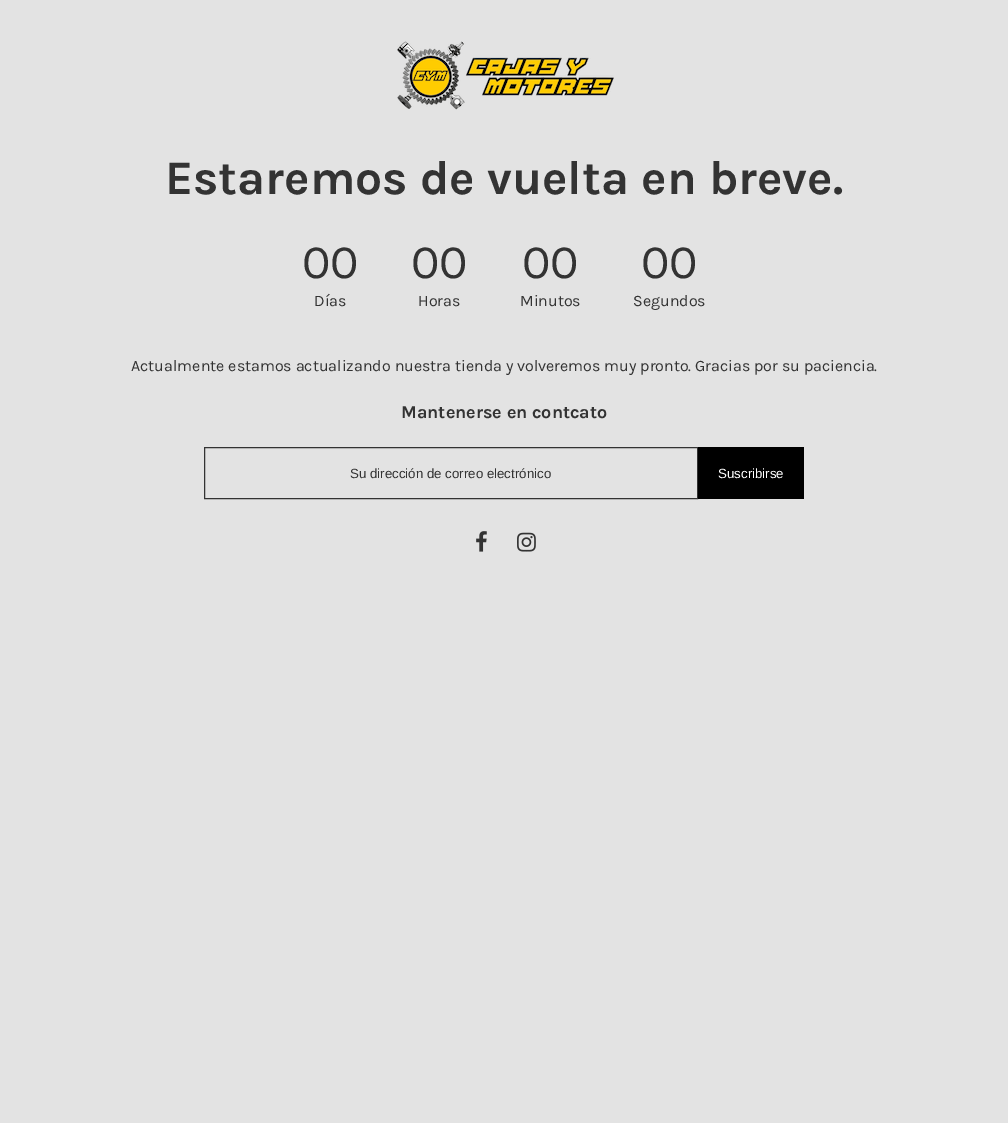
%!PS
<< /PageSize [1008 1123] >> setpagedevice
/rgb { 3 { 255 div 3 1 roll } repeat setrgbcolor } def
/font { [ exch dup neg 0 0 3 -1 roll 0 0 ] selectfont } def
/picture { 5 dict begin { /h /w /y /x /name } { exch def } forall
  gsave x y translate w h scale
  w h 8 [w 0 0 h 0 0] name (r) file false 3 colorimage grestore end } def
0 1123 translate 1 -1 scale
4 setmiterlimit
227 227 227 rgb
0 0 1008 1123 rectfill
(img/1.rgb) 397 41 217 69 picture
51 51 51 rgb
204.5 447.5 493 51 rectstroke
0 0 0 rgb
698 447 106 52 rectfill
(img/2.rgb) 476 531 11 21 picture
(img/3.rgb) 517 532 19 20 picture
/Karla-Bold 48 font
51 51 51 rgb
165 194 moveto (Estaremos de vuelta en breve.) show
/Karla-Regular 48 font
302 278 moveto (00) show
/Karla-Regular 16 font
314 306 moveto (Días) show
/Karla-Regular 48 font
411 278 moveto (00) show
/Karla-Regular 16 font
418 306 moveto (Horas) show
/Karla-Regular 48 font
522 278 moveto (00) show
/Karla-Regular 16 font
520 306 moveto (Minutos) show
/Karla-Regular 48 font
641 278 moveto (00) show
/Karla-Regular 16 font
633 306 moveto (Segundos) show
131 371 moveto (Actualmente estamos actualizando nuestra tienda y volveremos muy pronto. Gracias por su paciencia.) show
/Karla-Bold 18 font
401 418 moveto (Mantenerse en contcato) show
/LiberationSans-Regular 13.3 font
350 478 moveto (Su dirección de correo electrónico) show
255 255 255 rgb
718 478 moveto (Suscribirse) show
showpage
